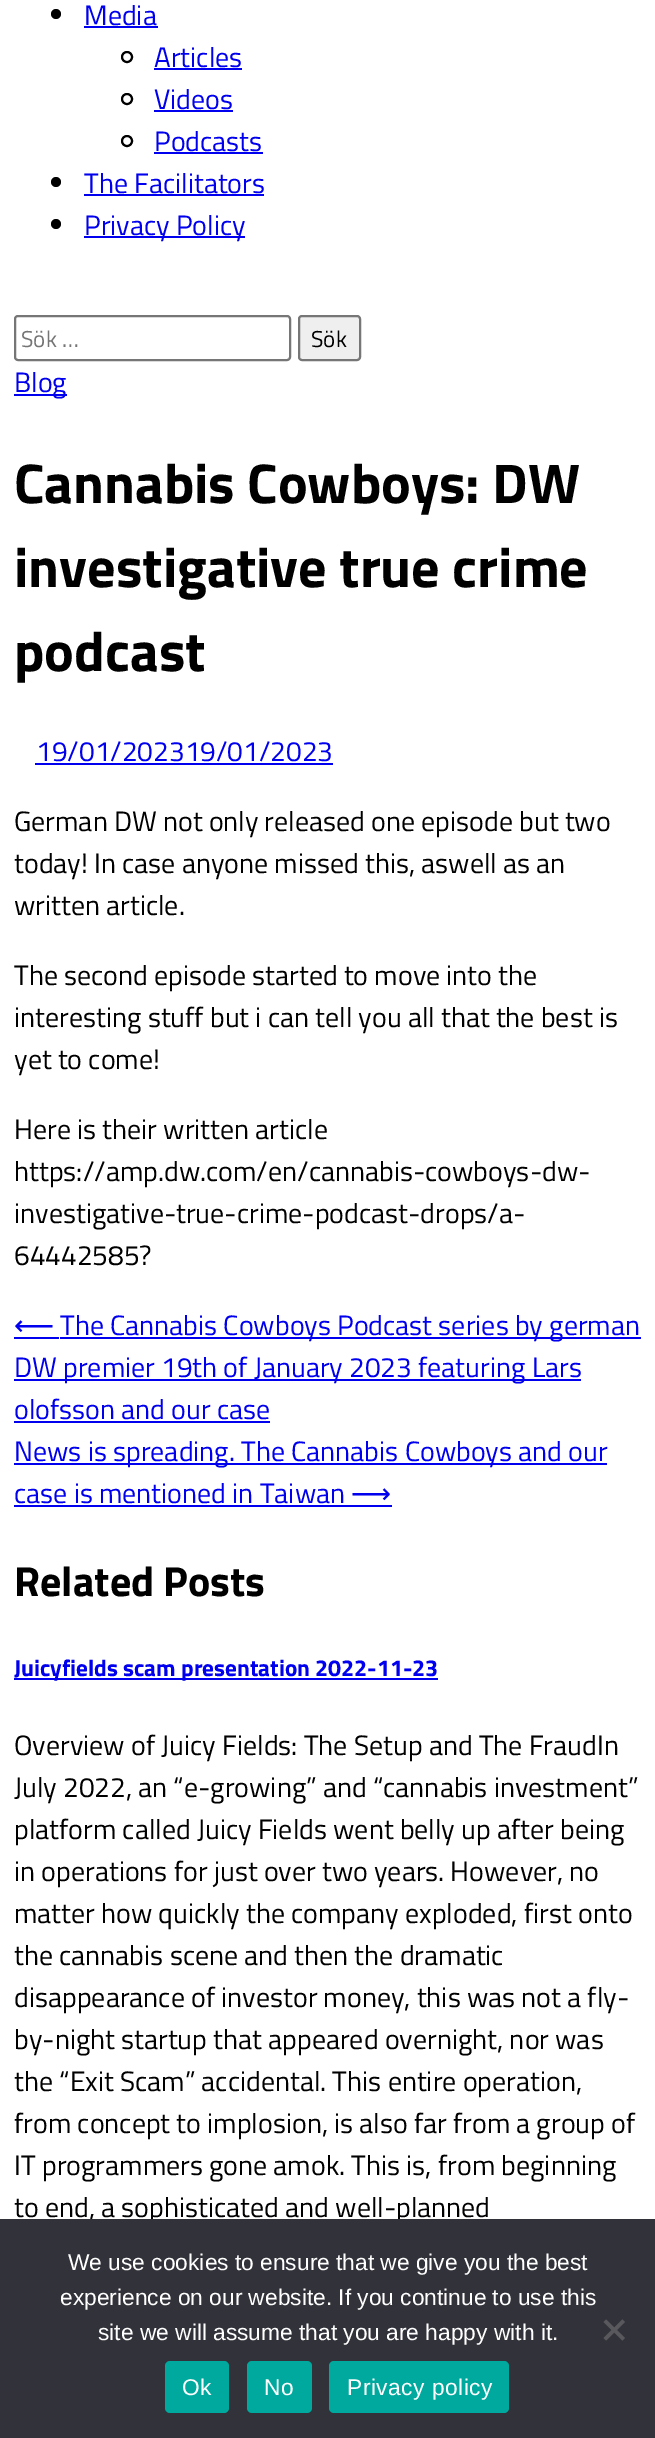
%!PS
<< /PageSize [655 2438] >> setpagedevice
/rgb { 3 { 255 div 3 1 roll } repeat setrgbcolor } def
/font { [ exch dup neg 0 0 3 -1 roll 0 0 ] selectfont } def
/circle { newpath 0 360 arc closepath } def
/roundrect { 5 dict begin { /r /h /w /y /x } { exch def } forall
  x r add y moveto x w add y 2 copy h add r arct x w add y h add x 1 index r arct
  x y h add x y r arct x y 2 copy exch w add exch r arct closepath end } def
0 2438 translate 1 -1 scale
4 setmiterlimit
255 255 255 rgb
0 0 655 2438 rectfill
0 0 0 rgb
56 14 5 circle fill
0 0 238 rgb
84 26 74 2 rectfill
0 0 0 rgb
2 setlinewidth
127 57 5 circle stroke
0 0 238 rgb
154 68 88 2 rectfill
0 0 0 rgb
127 99 5 circle stroke
0 0 238 rgb
154 110 79 2 rectfill
0 0 0 rgb
127 141 5 circle stroke
0 0 238 rgb
154 152 109 2 rectfill
0 0 0 rgb
56 182 5 circle fill
0 0 238 rgb
84 194 180 2 rectfill
0 0 0 rgb
56 224 5 circle fill
0 0 238 rgb
84 236 161 2 rectfill
118 118 118 rgb
15 316 275 44 3 roundrect stroke
239 239 239 rgb
299 316 61 44 3 roundrect gsave fill grestore
118 118 118 rgb
stroke
[
  [14 394 53 2 0 0 238]
  [35 763 298 2 0 0 238]
  [14 1337 45 2 0 0 238]
  [60 1337 581 2 0 0 238]
  [14 1379 567 2 0 0 238]
  [14 1421 256 2 0 0 238]
  [14 1463 593 2 0 0 238]
  [14 1505 378 2 0 0 238]
  [14 1678 424 2 0 0 238]
] { aload pop rgb rectfill } forall
/TitilliumWeb-Regular 28 font
[
  [(Media) 84 25]
  [(Articles) 154 67]
  [(Videos) 154 109]
  [(Podcasts) 154 151]
  [(The Facilitators) 84 193]
  [(Privacy Policy) 84 235]
] { aload pop moveto show } forall
/TitilliumWeb-Regular 23 font
117 117 117 rgb
21 347 moveto (Sök …) show
0 0 0 rgb
311 347 moveto (Sök) show
/TitilliumWeb-Regular 28 font
0 0 238 rgb
14 392 moveto (Blog) show
/TitilliumWeb-Bold 56 font
0 0 0 rgb
[
  [(Cannabis Cowboys: DW) 14 503]
  [(investigative true crime) 14 587]
  [(podcast) 14 671]
] { aload pop moveto show } forall
/TitilliumWeb-Regular 28 font
0 0 238 rgb
36 761 moveto (19/01/202319/01/2023) show
0 0 0 rgb
[
  [(German DW not only released one episode but two) 14 831]
  [(today! In case anyone missed this, aswell as an) 14 873]
  [(written article.) 14 915]
  [(The second episode started to move into the) 14 985]
  [(interesting stuff but i can tell you all that the best is) 14 1027]
  [(yet to come!) 14 1069]
  [(Here is their written article) 14 1139]
  [(https://amp.dw.com/en/cannabis-cowboys-dw-) 14 1181]
  [(investigative-true-crime-podcast-drops/a-) 14 1223]
  [(64442585?) 14 1265]
] { aload pop moveto show } forall
/DejaVuSans-Regular 28 font
0 0 238 rgb
14 1335 moveto (⟵) show
/TitilliumWeb-Regular 28 font
[
  [(The Cannabis Cowboys Podcast series by german) 60 1335]
  [(DW premier 19th of January 2023 featuring Lars) 14 1377]
  [(olofsson and our case) 14 1419]
  [(News is spreading. The Cannabis Cowboys and our) 14 1461]
  [(case is mentioned in Taiwan) 14 1503]
] { aload pop moveto show } forall
/DejaVuSans-Regular 28 font
351 1503 moveto (⟶) show
/TitilliumWeb-Bold 42 font
0 0 0 rgb
14 1596 moveto (Related Posts) show
/TitilliumWeb-Bold 23.25 font
0 0 238 rgb
14 1676 moveto (Juicyfields scam presentation 2022-11-23) show
/TitilliumWeb-Regular 28 font
0 0 0 rgb
[
  [(Overview of Juicy Fields: The Setup and The FraudIn) 14 1755]
  [(July 2022, an “e-growing” and “cannabis investment”) 14 1797]
  [(platform called Juicy Fields went belly up after being) 14 1839]
  [(in operations for just over two years. However, no) 14 1881]
  [(matter how quickly the company exploded, first onto) 14 1923]
  [(the cannabis scene and then the dramatic) 14 1965]
  [(disappearance of investor money, this was not a fly-) 14 2007]
  [(by-night startup that appeared overnight, nor was) 14 2049]
  [(the “Exit Scam” accidental. This entire operation,) 14 2091]
  [(from concept to implosion, is also far from a group of) 14 2133]
  [(IT programmers gone amok. This is, from beginning) 14 2175]
  [(to end, a sophisticated and well-planned) 14 2217]
] { aload pop moveto show } forall
50 50 58 rgb
0 2219 655 219 rectfill
/LiberationSans-Regular 22.75 font
255 255 255 rgb
[
  [(We use cookies to ensure that we give you the best) 68 2270]
  [(experience on our website. If you continue to use this) 60 2305]
  [(site we will assume that you are happy with it.) 98 2340]
] { aload pop moveto show } forall
89 89 93 rgb
622.5 2319.5 moveto 625 2322 lineto 606 2340.5 lineto 603.5 2338 lineto closepath fill
603.5 2322 moveto 606 2319.5 lineto 625 2338 lineto 622.5 2340.5 lineto closepath fill
0 169 157 rgb
165 2361 64 52 5 roundrect fill
255 255 255 rgb
182 2395 moveto 0.5 0 (Ok) ashow
0 169 157 rgb
247 2361 65 52 5 roundrect fill
255 255 255 rgb
264 2395 moveto 0.5 0 (No) ashow
0 169 157 rgb
329 2361 180 52 5 roundrect fill
255 255 255 rgb
347 2395 moveto 0.5 0 (Privacy policy) ashow
showpage
